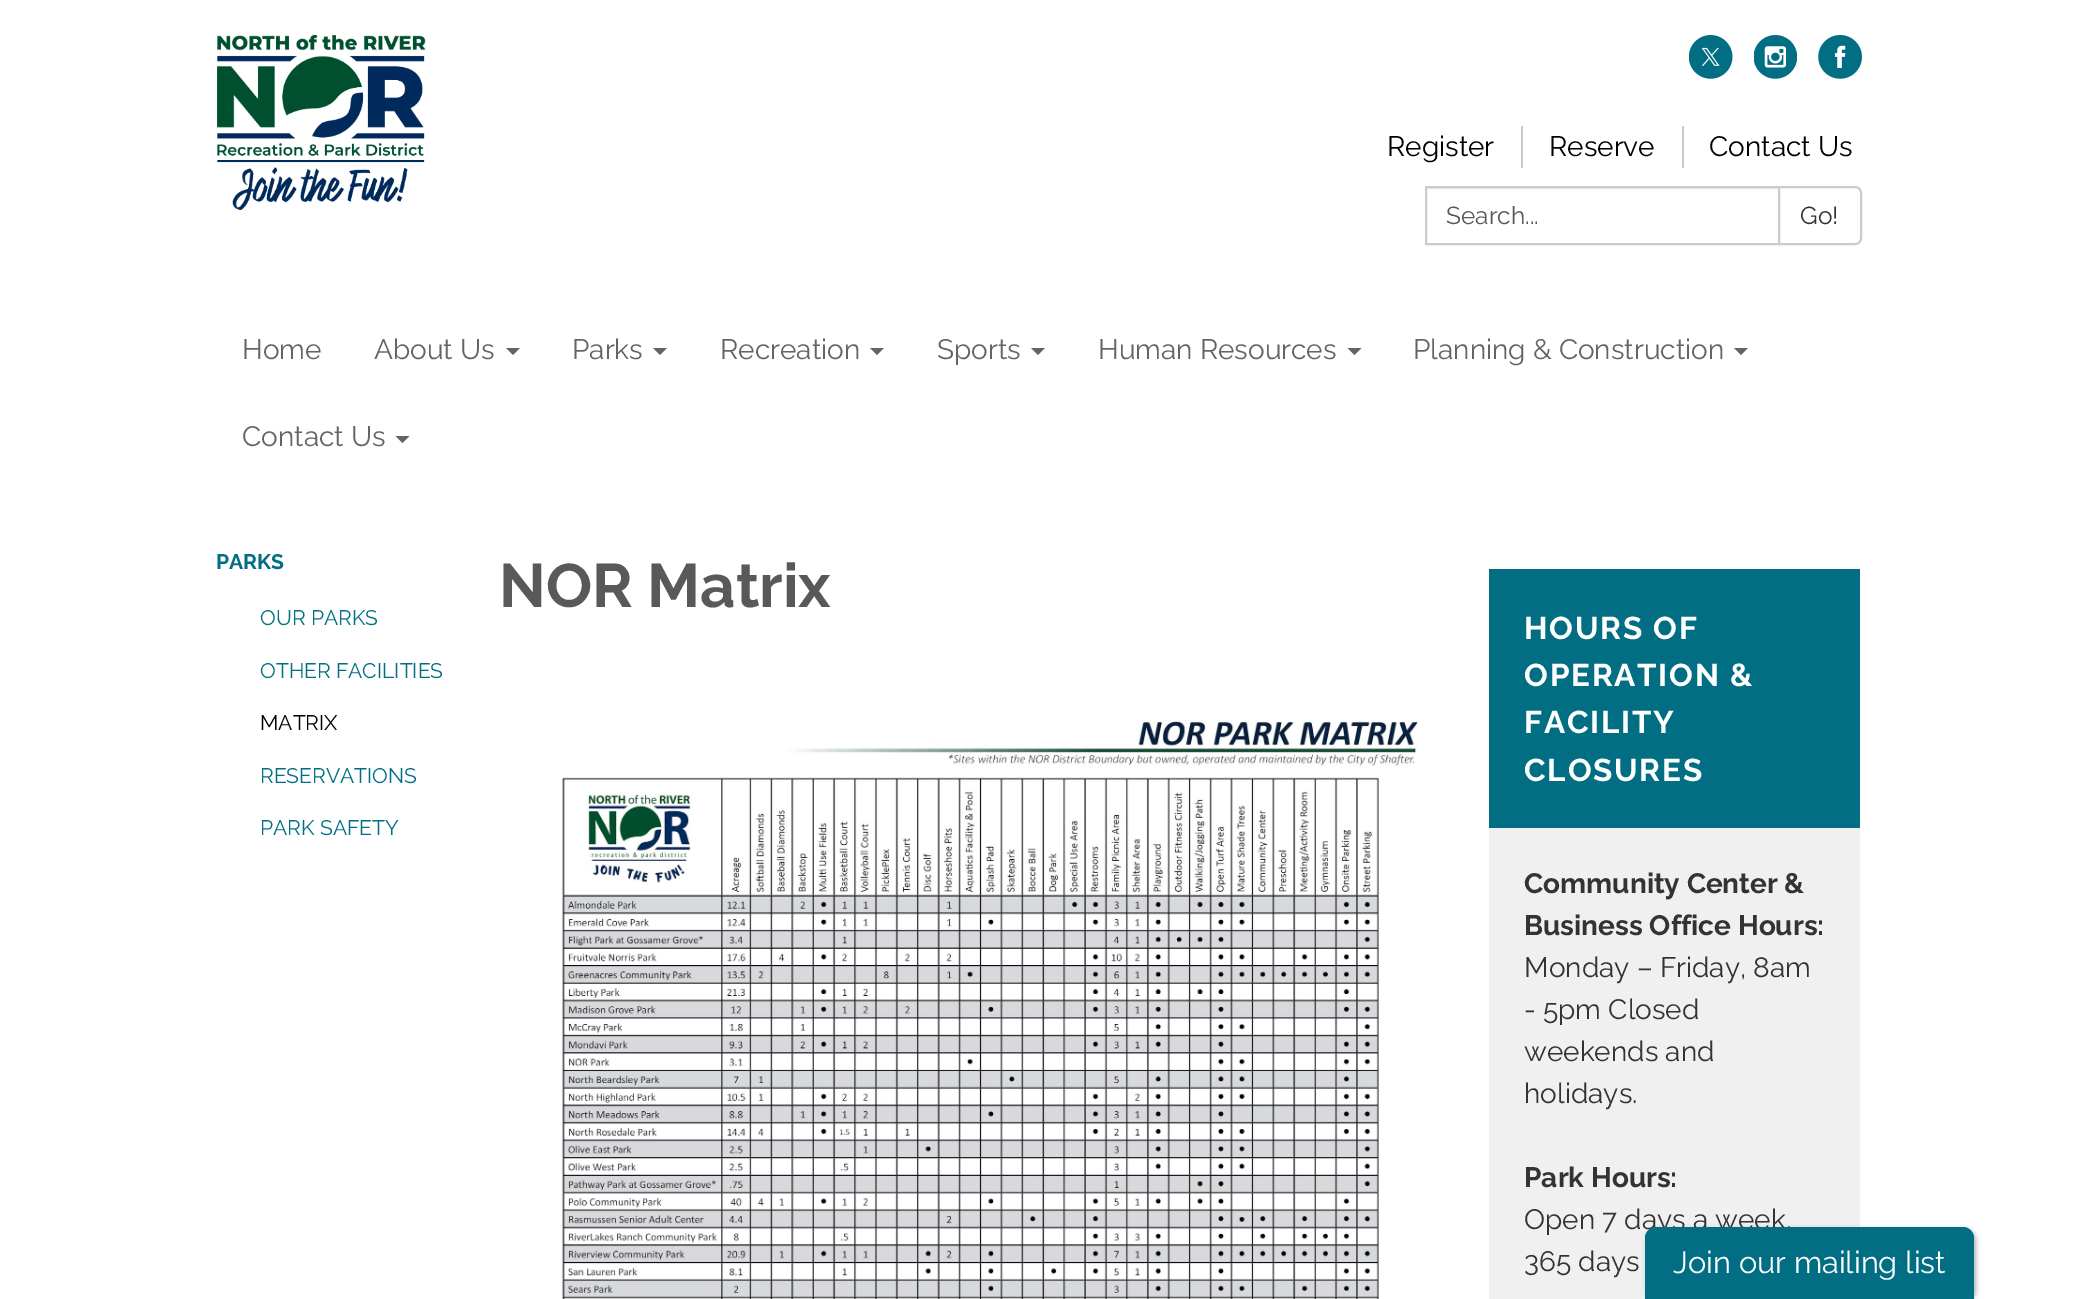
%!PS
<< /PageSize [2076 1299] /PageUsesTransparency true >> setpagedevice
/rgb { 3 { 255 div 3 1 roll } repeat setrgbcolor } def
/font { [ exch dup neg 0 0 3 -1 roll 0 0 ] selectfont } def
/alpha { dup .setfillconstantalpha .setstrokeconstantalpha } def
/roundrect { 5 dict begin { /r /h /w /y /x } { exch def } forall
  x r add y moveto x w add y 2 copy h add r arct x w add y h add x 1 index r arct
  x y h add x y r arct x y 2 copy exch w add exch r arct closepath end } def
/shadow { 12 dict begin { /a /b /q /h /w /y /x } { exch def } forall gsave /was 0 def
  9 -2 -9 { dup b mul 4 div /e exch def 1 sub .425 mul 2.718 exch exp 1 add a .99 .min exch div /now exch def
    1 1 now sub 1 was sub div sub alpha /was now def
    w h .min e 2 mul add 0 gt { x e sub y e sub w e 2 mul add h e 2 mul add
      q e add b .6 mul add w h .min 2 div e add .min 0 .max roundrect fill } if } for grestore end } def
/picture { 5 dict begin { /h /w /y /x /name } { exch def } forall
  gsave x y translate w h scale
  w h 8 [w 0 0 h 0 0] name (r) file false 3 colorimage grestore end } def
0 .pushpdf14devicefilter
0 1299 translate 1 -1 scale
4 setmiterlimit
255 255 255 rgb
0 0 2076 1299 rectfill
(img/1.rgb) 217 35 209 175 picture
(img/2.rgb) 1689 35 44 44 picture
(img/3.rgb) 1754 35 43 44 picture
(img/4.rgb) 1818 35 44 44 picture
[
  [1521 126 2 42 200 201 203]
  [1682 126 2 42 200 201 203]
  [1426 188 352 1 236 236 236]
] { aload pop rgb rectfill } forall
204 204 204 rgb
2 setlinewidth
1426 187 353 57 rectstroke
255 255 255 rgb
1779 187 moveto 1855 187 lineto 1858.5 187 1861 189.5 1861 193 curveto 1861 238 lineto 1861 241.5 1858.5 244 1855 244 curveto 1779 244 lineto closepath gsave fill grestore
204 204 204 rgb
stroke
100 100 100 rgb
506 348 moveto 520 348 lineto 513 355 lineto closepath fill
653 348 moveto 667 348 lineto 660 355 lineto closepath fill
870 348 moveto 884 348 lineto 877 355 lineto closepath fill
1031 348 moveto 1045 348 lineto 1038 355 lineto closepath fill
1347.5 348 moveto 1361.5 348 lineto 1354.5 355 lineto closepath fill
1734 348 moveto 1748 348 lineto 1741 355 lineto closepath fill
395.5 436 moveto 409.5 436 lineto 402.5 443 lineto closepath fill
(img/5.rgb) 562 719 856 580 picture
240 240 240 rgb
1489 828 371 471 rectfill
1 110 131 rgb
1489 569 371 259 rectfill
0 0 0 rgb
1647 1229 329 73 11 2.5 0.3 shadow
/Raleway-Regular 28 font
[
  [(Register) 1387 156]
  [(Reserve) 1549 156]
  [(Contact Us) 1709 156]
] { aload pop moveto show } forall
/Raleway-Regular 24.5 font
88 89 91 rgb
1446 224 moveto (Search...) show
51 51 51 rgb
1800 224 moveto (Go!) show
/Raleway-Regular 28 font
100 100 100 rgb
[
  [(Home) 242 359]
  [(About Us) 374 359]
  [(Parks) 572 359]
  [(Recreation) 720 359]
  [(Sports) 937 359]
  [(Human Resources) 1098 359]
  [(Planning & Construction) 1413 359]
  [(Contact Us) 242 446]
] { aload pop moveto show } forall
/Raleway-Bold 21 font
1 110 131 rgb
216 569 moveto (PARKS) show
/Raleway-Regular 21 font
260 625 moveto (OUR PARKS) show
260 678 moveto (OTHER FACILITIES) show
0 0 0 rgb
260 730 moveto (MATRIX) show
1 110 131 rgb
260 783 moveto (RESERVATIONS) show
260 835 moveto (PARK SAFETY) show
/Raleway-Bold 61.25 font
88 89 91 rgb
499 607 moveto (NOR Matrix) show
/Raleway-Bold 31.5 font
255 255 255 rgb
1524 639 moveto 1.75 0 (HOURS OF) ashow
1524 686 moveto 1.75 0 (OPERATION &) ashow
1524 733 moveto 1.75 0 (FACILITY) ashow
1524 781 moveto 1.75 0 (CLOSURES) ashow
/Raleway-Bold 28 font
51 51 51 rgb
1524 893 moveto (Community Center &) show
1524 935 moveto (Business Office Hours:) show
/Raleway-Regular 28 font
[
  [(Monday – Friday, 8am) 1524 977]
  [(- 5pm Closed) 1524 1019]
  [(weekends and) 1524 1061]
  [(holidays.) 1524 1103]
] { aload pop moveto show } forall
/Raleway-Bold 28 font
1524 1187 moveto (Park Hours:) show
/Raleway-Regular 28 font
1524 1229 moveto (Open 7 days a week,) show
1524 1271 moveto (365 days) show
1 110 131 rgb
1656 1227 moveto 1963 1227 lineto 1969 1227 1974 1232 1974 1238 curveto 1974 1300 lineto 1645 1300 lineto 1645 1238 lineto 1645 1232 1650 1227 1656 1227 curveto closepath fill
/Raleway-Regular 30.75 font
255 255 255 rgb
1673 1273 moveto (Join our mailing list) show
.poppdf14devicefilter showpage
